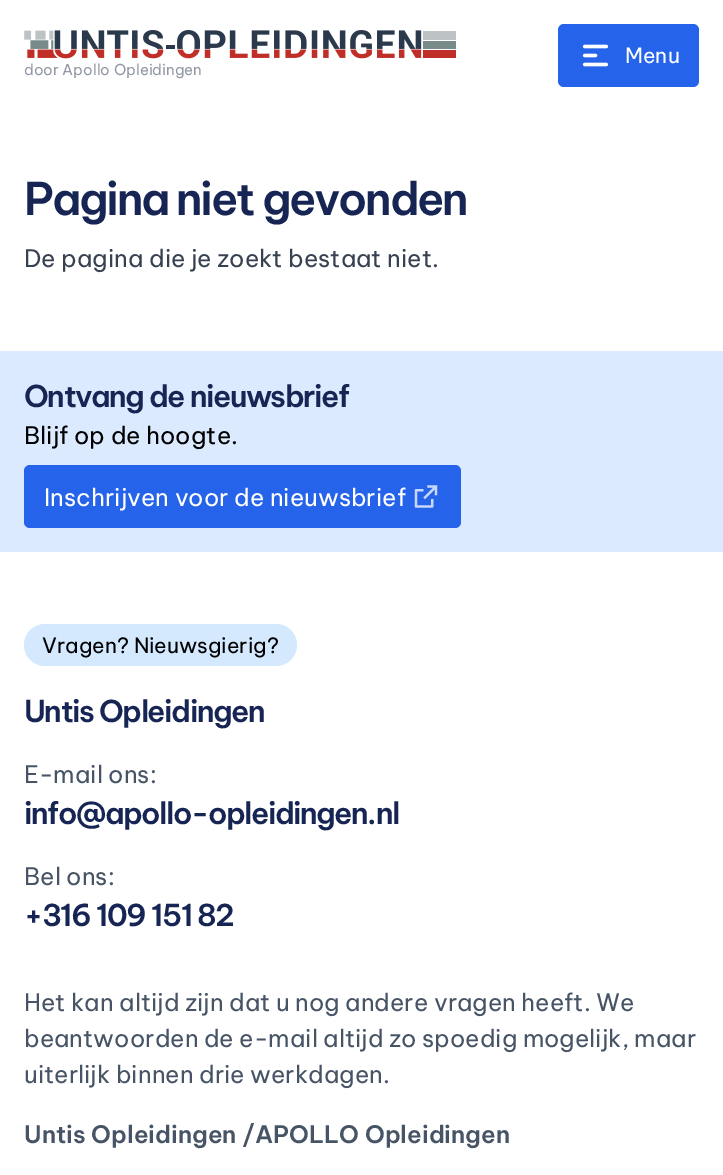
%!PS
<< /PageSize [723 1175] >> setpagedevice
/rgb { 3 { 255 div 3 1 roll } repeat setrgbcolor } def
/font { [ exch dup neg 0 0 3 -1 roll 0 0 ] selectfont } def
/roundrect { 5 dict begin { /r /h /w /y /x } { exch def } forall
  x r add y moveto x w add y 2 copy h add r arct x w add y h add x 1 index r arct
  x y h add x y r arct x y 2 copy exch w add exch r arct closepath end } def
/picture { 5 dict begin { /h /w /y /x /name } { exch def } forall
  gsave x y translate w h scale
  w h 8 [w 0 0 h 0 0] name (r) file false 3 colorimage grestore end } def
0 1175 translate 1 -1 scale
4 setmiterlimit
255 255 255 rgb
0 0 723 1175 rectfill
37 99 235 rgb
558 24 141 63 6 roundrect fill
(img/1.rgb) 582 44 27 23 picture
(img/2.rgb) 24 30 432 29 picture
219 234 254 rgb
0 351 723 201 rectfill
37 99 235 rgb
24 465 437 63 6 roundrect fill
(img/3.rgb) 414 485 24 23 picture
212 232 254 rgb
24 624 273 42 21 roundrect fill
/BeVietnamPro-Regular 21 font
255 255 255 rgb
625 63 moveto (Menu) show
/BeVietnamPro-Regular 15 font
145 152 163 rgb
24 75 moveto (door Apollo Opleidingen) show
/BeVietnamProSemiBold-SemiBold 45 font
23 37 84 rgb
24 215 moveto -2.25 0 (Pagina niet gevonden) ashow
/BeVietnamPro-Regular 24 font
55 65 81 rgb
24 267 moveto (De pagina die je zoekt bestaat niet.) show
/BeVietnamProSemiBold-SemiBold 30 font
23 37 84 rgb
24 407 moveto -1.5 0 (Ontvang de nieuwsbrief) ashow
/BeVietnamPro-Regular 24 font
0 0 0 rgb
24 444 moveto (Blijf op de hoogte.) show
255 255 255 rgb
44 506 moveto (Inschrijven voor de nieuwsbrief) show
/BeVietnamPro-Regular 21 font
0 0 0 rgb
42 653 moveto (Vragen? Nieuwsgierig?) show
/BeVietnamProSemiBold-SemiBold 30 font
23 37 84 rgb
24 722 moveto -1.5 0 (Untis Opleidingen) ashow
/BeVietnamPro-Regular 24 font
71 84 102 rgb
24 783 moveto (E-mail ons:) show
/BeVietnamProSemiBold-SemiBold 30 font
23 37 84 rgb
24 824 moveto -1.5 0 (info@apollo-opleidingen.nl) ashow
/BeVietnamPro-Regular 24 font
71 84 102 rgb
24 885 moveto (Bel ons:) show
/BeVietnamProSemiBold-SemiBold 30 font
23 37 84 rgb
24 926 moveto -1.5 0 (+316 109 151 82) ashow
/BeVietnamPro-Regular 24 font
71 84 102 rgb
[
  [(Het kan altijd zijn dat u nog andere vragen heeft. We) 24 1011]
  [(beantwoorden de e-mail altijd zo spoedig mogelijk, maar) 24 1047]
  [(uiterlijk binnen drie werkdagen.) 24 1083]
] { aload pop moveto show } forall
/BeVietnamProSemiBold-SemiBold 24 font
24 1143 moveto (Untis Opleidingen /APOLLO Opleidingen) show
showpage
